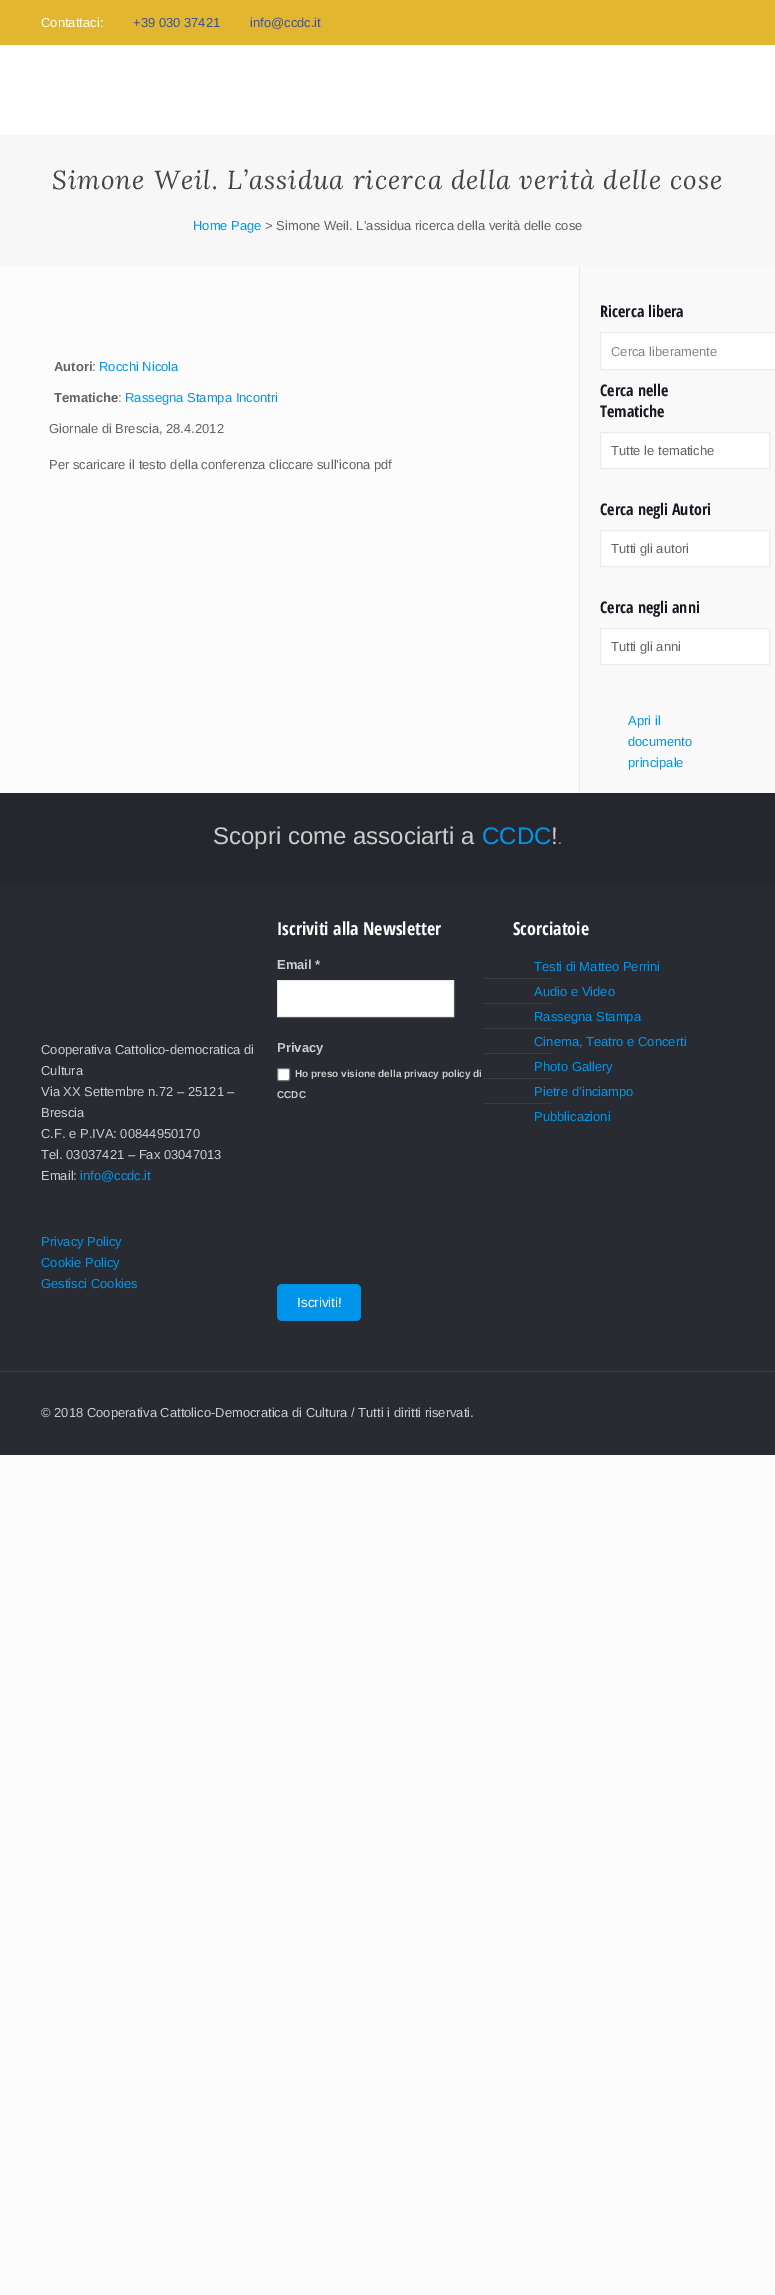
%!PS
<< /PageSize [775 2295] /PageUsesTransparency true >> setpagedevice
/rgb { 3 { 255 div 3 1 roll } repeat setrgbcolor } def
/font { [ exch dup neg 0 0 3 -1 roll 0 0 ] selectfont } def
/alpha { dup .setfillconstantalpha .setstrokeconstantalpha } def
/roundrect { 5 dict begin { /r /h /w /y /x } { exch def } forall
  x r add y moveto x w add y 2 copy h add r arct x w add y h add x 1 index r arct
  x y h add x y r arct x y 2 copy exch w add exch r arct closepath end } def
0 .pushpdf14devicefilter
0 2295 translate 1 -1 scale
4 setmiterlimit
252 252 252 rgb
0 0 775 2295 rectfill
[
  [0 0 775 45 226 183 47]
  [0 45 775 90 255 255 255]
  [0 135 775 131 247 247 247]
  [579 266 1 527 232 232 232]
  [580 266 195 527 249 249 249]
] { aload pop rgb rectfill } forall
255 255 255 rgb
600.5 332.5 moveto 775.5 332.5 lineto 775.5 369.5 lineto 600.5 369.5 lineto closepath gsave fill grestore
235 235 235 rgb
stroke
255 255 255 rgb
600.5 432.5 moveto 769.5 432.5 lineto 769.5 468.5 lineto 600.5 468.5 lineto closepath gsave fill grestore
235 235 235 rgb
stroke
255 255 255 rgb
600.5 530.5 moveto 769.5 530.5 lineto 769.5 566.5 lineto 600.5 566.5 lineto closepath gsave fill grestore
235 235 235 rgb
stroke
255 255 255 rgb
600.5 628.5 moveto 769.5 628.5 lineto 769.5 664.5 lineto 600.5 664.5 lineto closepath gsave fill grestore
235 235 235 rgb
stroke
41 43 51 rgb
0 883 775 572 rectfill
37 39 46 rgb
0 793 775 90 rectfill
255 255 255 rgb
277.5 980.5 moveto 453.5 980.5 lineto 453.5 1016.5 lineto 277.5 1016.5 lineto closepath gsave fill grestore
235 235 235 rgb
stroke
255 255 255 rgb
277.5 1068.5 12 12 1.5 roundrect gsave fill grestore
118 118 118 rgb
stroke
0 149 235 rgb
277 1284 84 37 5 roundrect fill
0.03 alpha
0 0 0 rgb
277.5 1284.5 83 36 rectstroke
1 alpha
[
  [483 978 70 1 58 59 66]
  [483 1003 70 1 58 59 66]
  [483 1028 70 1 58 59 66]
  [483 1053 70 1 58 59 66]
  [483 1078 70 1 58 59 66]
  [483 1103 70 1 58 59 66]
  [0 1371 775 1 62 64 71]
] { aload pop rgb rectfill } forall
/LiberationSans-Regular 13 font
255 255 255 rgb
41 27 moveto (Contattaci:) show
60 82 152 rgb
133 27 moveto (+39 030 37421) show
250 27 moveto (info@ccdc.it) show
/Lora-Italic 26 font
68 68 68 rgb
52 189 moveto 1 0 (Simone Weil. L’assidua ricerca della verità delle cose) ashow
/LiberationSans-Regular 13 font
0 149 235 rgb
193 230 moveto (Home Page) show
98 98 98 rgb
265 230 moveto (> Simone Weil. L’assidua ricerca della verità delle cose) show
/LiberationSans-Bold 13 font
54 371 moveto (Autori) show
/LiberationSans-Regular 13 font
92 371 moveto (:) show
0 149 235 rgb
99 371 moveto (Rocchi Nicola) show
/LiberationSans-Bold 13 font
98 98 98 rgb
54 402 moveto (Tematiche) show
/LiberationSans-Regular 13 font
118 402 moveto (:) show
0 149 235 rgb
125 402 moveto (Rassegna Stampa Incontri) show
98 98 98 rgb
49 433 moveto (Giornale di Brescia, 28.4.2012) show
49 469 moveto (Per scaricare il testo della conferenza cliccare sull’icona pdf) show
/OpenSansCondensed-Bold 16 font
22 25 34 rgb
600 317 moveto (Ricerca libera) show
/LiberationSans-Regular 13 font
132 132 132 rgb
611 356 moveto (Cerca liberamente) show
/OpenSansCondensed-Bold 16 font
22 25 34 rgb
600 396 moveto (Cerca nelle) show
600 417 moveto (Tematiche) show
/LiberationSans-Regular 13 font
98 98 98 rgb
611 455 moveto (Tutte le tematiche) show
/OpenSansCondensed-Bold 16 font
22 25 34 rgb
600 515 moveto (Cerca negli Autori) show
/LiberationSans-Regular 13 font
98 98 98 rgb
611 553 moveto (Tutti gli autori) show
/OpenSansCondensed-Bold 16 font
22 25 34 rgb
600 613 moveto (Cerca negli anni) show
/LiberationSans-Regular 13 font
98 98 98 rgb
611 651 moveto (Tutti gli anni) show
0 149 235 rgb
[
  [(Apri il) 628 725]
  [(documento) 628 746]
  [(principale) 628 767]
] { aload pop moveto show } forall
/LiberationSans-Regular 24 font
204 204 204 rgb
213 844 moveto (Scopri come associarti a) show
0 149 235 rgb
482 844 moveto (CCDC) show
204 204 204 rgb
551 844 moveto (!) show
/LiberationSans-Regular 14 font
558 844 moveto (.) show
/OpenSansCondensed-Bold 18 font
255 255 255 rgb
277 935 moveto (Iscriviti alla Newsletter) show
/LiberationSans-Bold 13 font
204 204 204 rgb
277 969 moveto (Email *) show
277 1052 moveto (Privacy) show
/LiberationSans-Bold 10 font
295 1077 moveto (Ho preso visione della privacy policy di) show
277 1098 moveto (CCDC) show
/LiberationSans-Regular 13.5 font
255 255 255 rgb
297 1307 moveto (Iscriviti!) show
/OpenSansCondensed-Bold 18 font
513 935 moveto (Scorciatoie) show
/LiberationSans-Regular 13 font
0 149 235 rgb
[
  [(Testi di Matteo Perrini) 534 971]
  [(Audio e Video) 534 996]
  [(Rassegna Stampa) 534 1021]
  [(Cinema, Teatro e Concerti) 534 1046]
  [(Photo Gallery) 534 1071]
  [(Pietre d’inciampo) 534 1096]
  [(Pubblicazioni) 534 1121]
] { aload pop moveto show } forall
204 204 204 rgb
[
  [(Cooperativa Cattolico-democratica di) 41 1054]
  [(Cultura) 41 1075]
  [(Via XX Settembre n.72 – 25121 –) 41 1096]
  [(Brescia) 41 1117]
  [(C.F. e P.IVA: 00844950170) 41 1138]
  [(Tel. 03037421 – Fax 03047013) 41 1159]
  [(Email:) 41 1180]
] { aload pop moveto show } forall
0 149 235 rgb
[
  [(info@ccdc.it) 80 1180]
  [(Privacy Policy) 41 1246]
  [(Cookie Policy) 41 1267]
  [(Gestisci Cookies) 41 1288]
] { aload pop moveto show } forall
204 204 204 rgb
41 1417 moveto (© 2018 Cooperativa Cattolico-Democratica di Cultura / Tutti i diritti riservati.) show
.poppdf14devicefilter showpage
